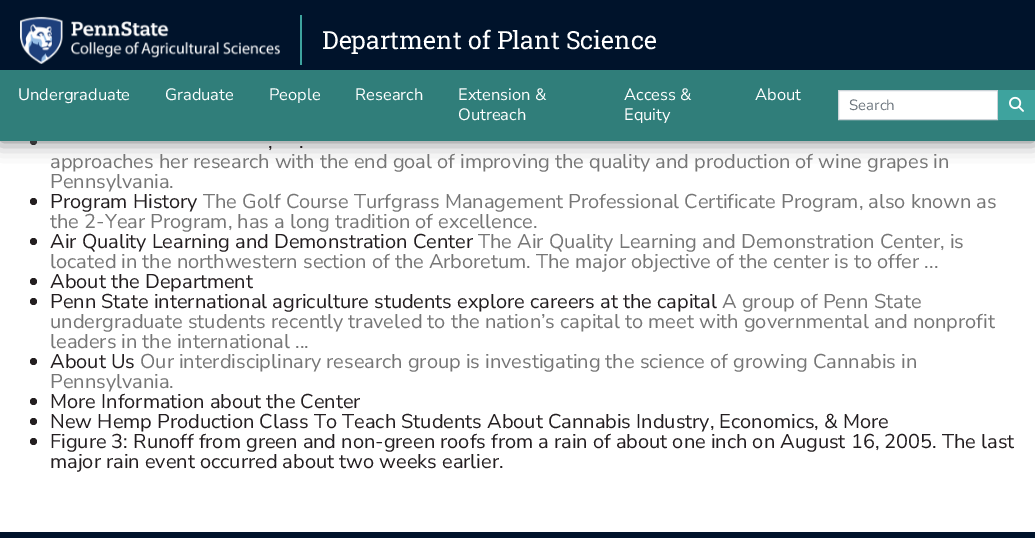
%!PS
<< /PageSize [1035 538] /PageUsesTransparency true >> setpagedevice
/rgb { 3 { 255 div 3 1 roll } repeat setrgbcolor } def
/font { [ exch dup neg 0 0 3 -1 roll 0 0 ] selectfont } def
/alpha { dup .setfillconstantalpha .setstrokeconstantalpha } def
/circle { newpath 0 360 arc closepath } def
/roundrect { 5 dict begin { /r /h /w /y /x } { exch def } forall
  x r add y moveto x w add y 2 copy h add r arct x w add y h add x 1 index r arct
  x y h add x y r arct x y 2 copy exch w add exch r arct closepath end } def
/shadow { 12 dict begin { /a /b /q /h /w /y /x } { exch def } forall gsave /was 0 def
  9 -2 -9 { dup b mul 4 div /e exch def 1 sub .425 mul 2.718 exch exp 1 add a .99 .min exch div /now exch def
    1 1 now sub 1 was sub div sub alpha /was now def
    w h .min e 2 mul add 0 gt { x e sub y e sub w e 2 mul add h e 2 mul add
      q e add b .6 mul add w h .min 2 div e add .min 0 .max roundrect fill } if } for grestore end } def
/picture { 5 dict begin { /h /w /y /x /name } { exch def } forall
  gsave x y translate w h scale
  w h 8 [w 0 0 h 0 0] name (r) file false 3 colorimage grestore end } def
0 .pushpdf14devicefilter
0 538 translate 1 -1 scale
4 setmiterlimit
255 255 255 rgb
0 0 1035 538 rectfill
35 30 32 rgb
33.5 141.5 3.5 circle fill
84 88 90 rgb
0 0 1035 141 0 10 0.85 shadow
0 19 43 rgb
0 0 1035 70 rectfill
(img/1.rgb) 20 16 260 48 picture
62 163 158 rgb
300 15 2 50 rectfill
48 126 122 rgb
0 70 1035 71 rectfill
255 255 255 rgb
838.5 90.5 moveto 997.5 90.5 lineto 997.5 119.5 lineto 838.5 119.5 lineto closepath gsave fill grestore
204 211 216 rgb
stroke
62 163 158 rgb
998 90 37 30 rectfill
(img/2.rgb) 1009 96 15 16 picture
35 30 32 rgb
33.5 201.5 3.5 circle fill
33.5 241.5 3.5 circle fill
33.5 281.5 3.5 circle fill
33.5 301.5 3.5 circle fill
33.5 361.5 3.5 circle fill
33.5 401.5 3.5 circle fill
33.5 421.5 3.5 circle fill
33.5 441.5 3.5 circle fill
0 19 43 rgb
0 532 1035 6 rectfill
/RobotoSlab-Regular 25 font
255 255 255 rgb
322 49 moveto (Department of Plant Science) show
/NunitoSans-Regular 16.5 font
[
  [(Undergraduate) 18 100]
  [(Graduate) 165 100]
  [(People) 269 100]
  [(Research) 355 100]
  [(Extension &) 458 100]
  [(Outreach) 458 120]
  [(Access &) 624 100]
  [(Equity) 624 120]
  [(About) 755 100]
] { aload pop moveto show } forall
/NunitoSans-Regular 15 font
108 117 125 rgb
849 110 moveto (Search) show
/NunitoSans-Regular 20 font
35 30 32 rgb
268 148 moveto (,) show
299 148 moveto (.) show
118 118 118 rgb
50 168 moveto (approaches her research with the end goal of improving the quality and production of wine grapes in) show
50 188 moveto (Pennsylvania.) show
35 30 32 rgb
50 208 moveto (Program History) show
118 118 118 rgb
203 208 moveto (The Golf Course Turfgrass Management Professional Certificate Program, also known as) show
50 228 moveto (the 2-Year Program, has a long tradition of excellence.) show
35 30 32 rgb
50 248 moveto (Air Quality Learning and Demonstration Center) show
118 118 118 rgb
478 248 moveto (The Air Quality Learning and Demonstration Center, is) show
50 268 moveto (located in the northwestern section of the Arboretum. The major objective of the center is to offer ...) show
35 30 32 rgb
50 288 moveto (About the Department) show
50 308 moveto (Penn State international agriculture students explore careers at the capital) show
118 118 118 rgb
[
  [(A group of Penn State) 722 308]
  [(undergraduate students recently traveled to the nation’s capital to meet with governmental and nonprofit) 50 328]
  [(leaders in the international ...) 50 348]
] { aload pop moveto show } forall
35 30 32 rgb
50 368 moveto (About Us) show
118 118 118 rgb
140 368 moveto (Our interdisciplinary research group is investigating the science of growing Cannabis in) show
50 388 moveto (Pennsylvania.) show
35 30 32 rgb
[
  [(More Information about the Center) 50 408]
  [(New Hemp Production Class To Teach Students About Cannabis Industry, Economics, & More) 50 428]
  [(Figure 3: Runoff from green and non-green roofs from a rain of about one inch on August 16, 2005. The last) 50 448]
  [(major rain event occurred about two weeks earlier.) 50 468]
] { aload pop moveto show } forall
.poppdf14devicefilter showpage
